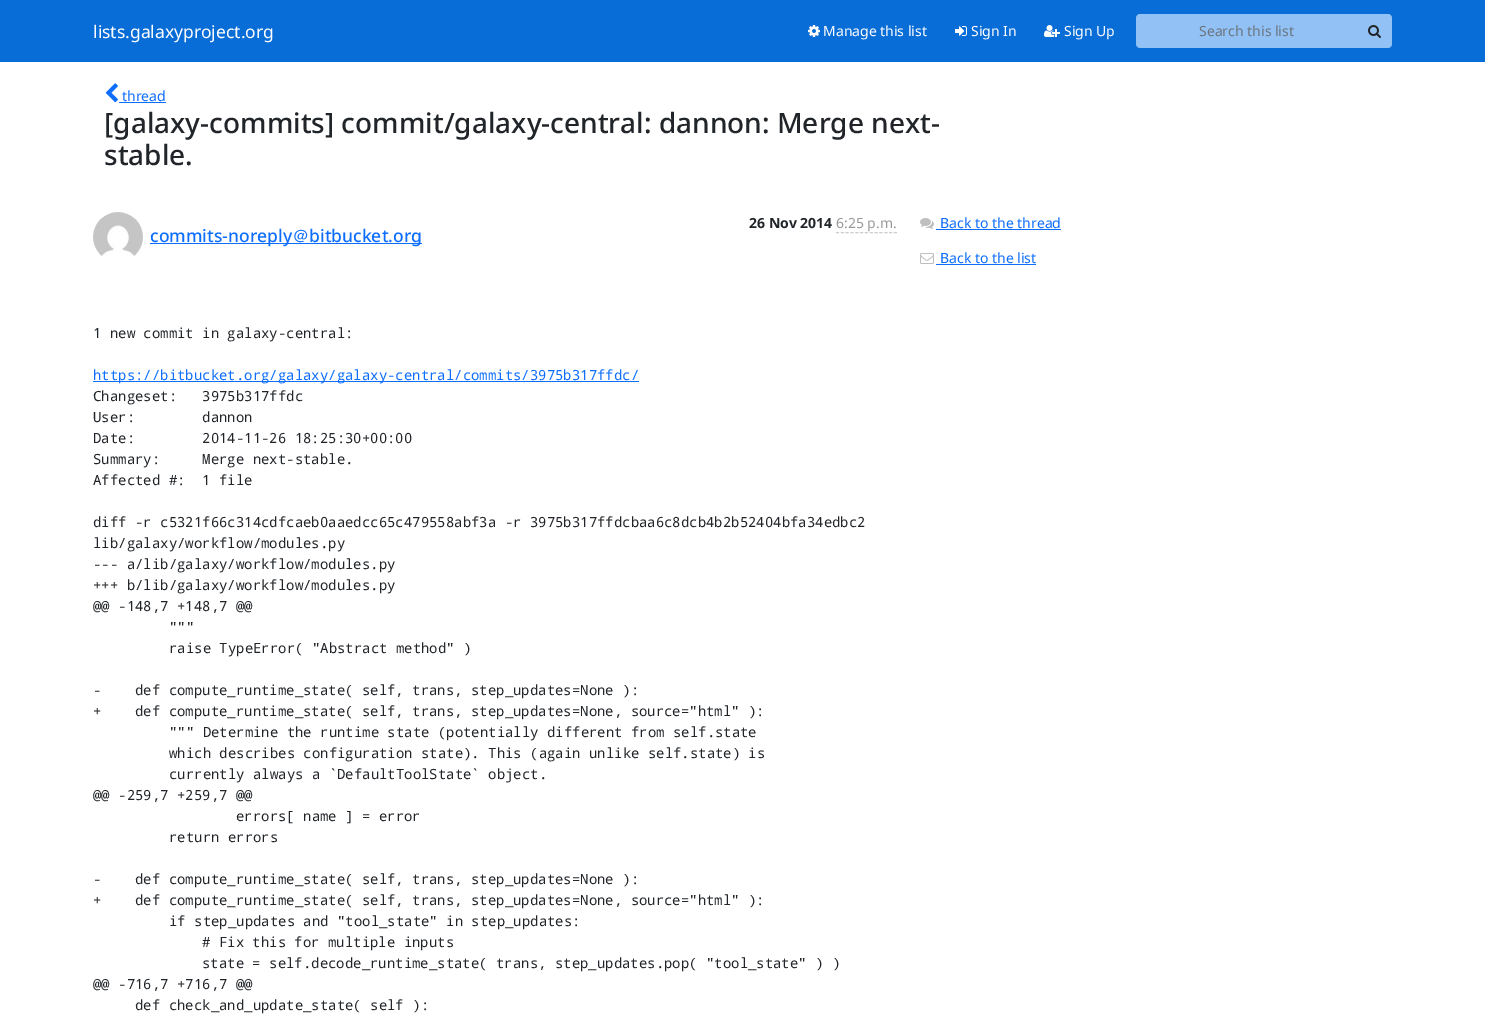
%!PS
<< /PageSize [1485 1020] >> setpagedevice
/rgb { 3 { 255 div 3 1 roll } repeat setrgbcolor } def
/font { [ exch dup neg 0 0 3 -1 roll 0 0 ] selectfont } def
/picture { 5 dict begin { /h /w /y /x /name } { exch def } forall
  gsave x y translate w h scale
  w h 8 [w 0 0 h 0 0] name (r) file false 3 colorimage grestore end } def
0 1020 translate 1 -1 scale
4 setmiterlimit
255 255 255 rgb
0 0 1485 1020 rectfill
8 109 215 rgb
0 0 1485 62 rectfill
(img/1.rgb) 808 25 12 12 picture
(img/2.rgb) 955 26 12 10 picture
(img/3.rgb) 1044 25 16 12 picture
146 194 245 rgb
1140 14 moveto 1357 14 lineto 1357 48 lineto 1140 48 lineto 1138 48 1136 46 1136 44 curveto 1136 18 lineto 1136 16 1138 14 1140 14 curveto closepath fill
1356 14 moveto 1388 14 lineto 1390 14 1392 16 1392 18 curveto 1392 44 lineto 1392 46 1390 48 1388 48 curveto 1356 48 lineto closepath fill
(img/4.rgb) 1368 25 13 13 picture
(img/5.rgb) 105 83 13 20 picture
13 110 253 rgb
119 102 47 1 rectfill
204 204 204 rgb
[3 1.83] 0 setdash
836 232.5 moveto 897 232.5 lineto stroke
(img/6.rgb) 93 212 50 44 picture
13 110 253 rgb
150 243 272 1 rectfill
93 381 546 1 rectfill
(img/7.rgb) 920 218 14 11 picture
936 229 125 1 rectfill
(img/8.rgb) 920 253 14 11 picture
936 264 100 1 rectfill
/NotoSans-Regular 17.5 font
255 255 255 rgb
93 38 moveto (lists.galaxyproject.org) show
/NotoSans-Regular 14 font
[
  [(Manage this list) 823 36]
  [(Sign In) 971 36]
  [(Sign Up) 1064 36]
] { aload pop moveto show } forall
108 117 125 rgb
1199 36 moveto (Search this list) show
13 110 253 rgb
122 101 moveto (thread) show
/NotoSans-Medium 28 font
33 37 41 rgb
104 133 moveto ([galaxy-commits] commit/galaxy-central: dannon: Merge next-) show
104 165 moveto (stable.) show
/NotoSans-Bold 14 font
749 228 moveto (26 Nov 2014) show
/NotoSans-Regular 14 font
153 153 153 rgb
836 228 moveto (6:25 p.m.) show
/NotoSans-Medium 17.5 font
13 110 253 rgb
150 242 moveto (commits-noreply) show
/WenQuanYiZenHei-Medium 17.5 font
292 242 moveto (＠) show
/NotoSans-Medium 17.5 font
309 242 moveto (bitbucket.org) show
/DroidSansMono-Regular 14 font
33 37 41 rgb
93 338 moveto (1 new commit in galaxy-central:) show
13 110 253 rgb
93 380 moveto (https://bitbucket.org/galaxy/galaxy-central/commits/3975b317ffdc/) show
33 37 41 rgb
[
  [(Changeset:   3975b317ffdc) 93 401]
  [(User:        dannon) 93 422]
  [(Date:        2014-11-26 18:25:30+00:00) 93 443]
  [(Summary:     Merge next-stable.) 93 464]
  [(Affected #:  1 file) 93 485]
  [(diff -r c5321f66c314cdfcaeb0aaedcc65c479558abf3a -r 3975b317ffdcbaa6c8dcb4b2b52404bfa34edbc2) 93 527]
  [(lib/galaxy/workflow/modules.py) 93 548]
  [(--- a/lib/galaxy/workflow/modules.py) 93 569]
  [(+++ b/lib/galaxy/workflow/modules.py) 93 590]
  [(@@ -148,7 +148,7 @@) 93 611]
  [(""") 169 632]
  [(raise TypeError\( "Abstract method" \)) 169 653]
  [(-    def compute_runtime_state\( self, trans, step_updates=None \):) 93 695]
  [(+    def compute_runtime_state\( self, trans, step_updates=None, source="html" \):) 93 716]
  [(""" Determine the runtime state \(potentially different from self.state) 169 737]
  [(which describes configuration state\). This \(again unlike self.state\) is) 169 758]
  [(currently always a `DefaultToolState` object.) 169 779]
  [(@@ -259,7 +259,7 @@) 93 800]
  [(errors[ name ] = error) 236 821]
  [(return errors) 169 842]
  [(-    def compute_runtime_state\( self, trans, step_updates=None \):) 93 884]
  [(+    def compute_runtime_state\( self, trans, step_updates=None, source="html" \):) 93 905]
  [(if step_updates and "tool_state" in step_updates:) 169 926]
  [(# Fix this for multiple inputs) 202 947]
  [(state = self.decode_runtime_state\( trans, step_updates.pop\( "tool_state" \) \)) 202 968]
  [(@@ -716,7 +716,7 @@) 93 989]
  [(def check_and_update_state\( self \):) 135 1010]
] { aload pop moveto show } forall
/NotoSans-Regular 14 font
13 110 253 rgb
940 228 moveto (Back to the thread) show
940 263 moveto (Back to the list) show
showpage
